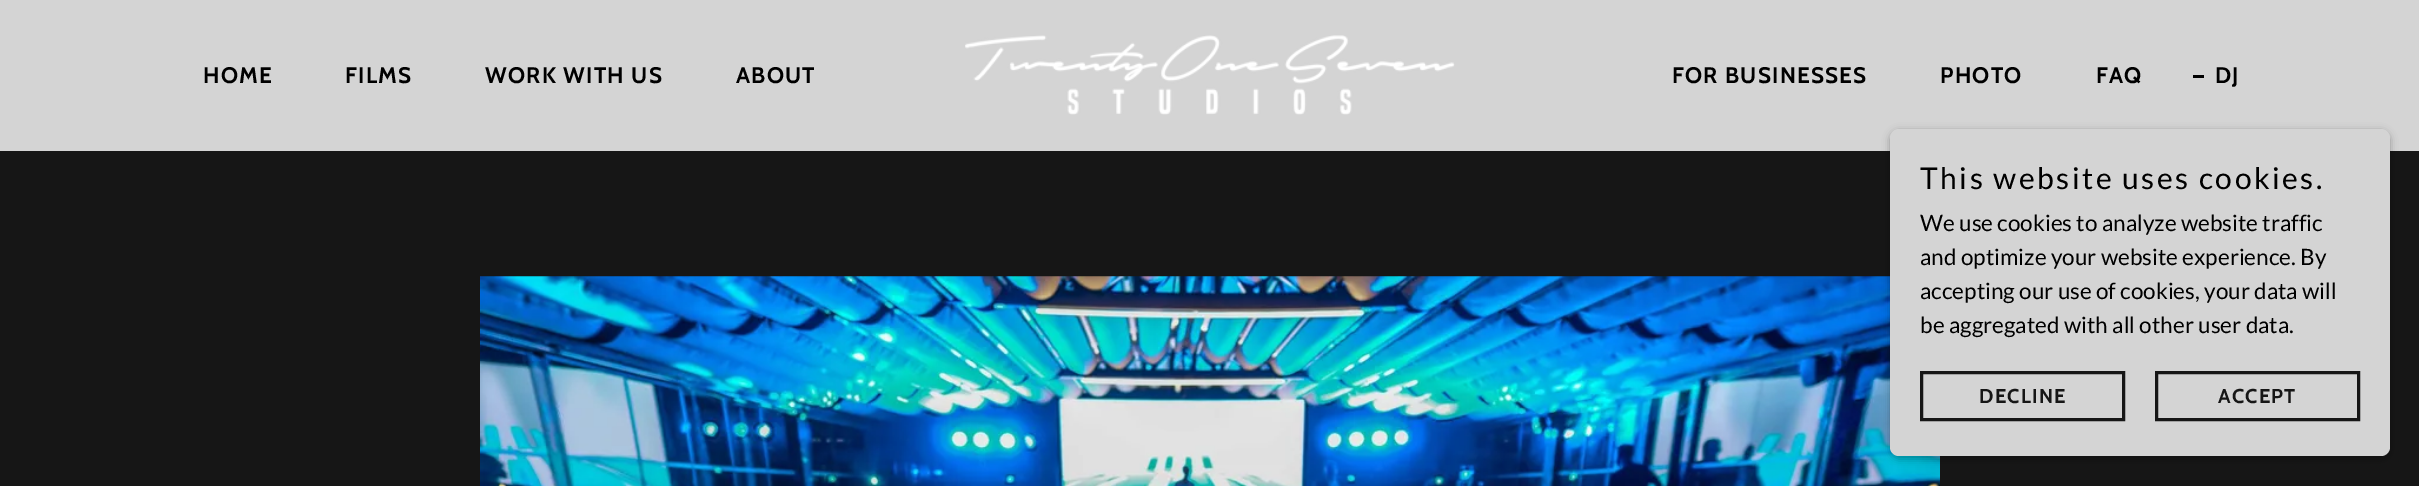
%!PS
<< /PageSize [2419 486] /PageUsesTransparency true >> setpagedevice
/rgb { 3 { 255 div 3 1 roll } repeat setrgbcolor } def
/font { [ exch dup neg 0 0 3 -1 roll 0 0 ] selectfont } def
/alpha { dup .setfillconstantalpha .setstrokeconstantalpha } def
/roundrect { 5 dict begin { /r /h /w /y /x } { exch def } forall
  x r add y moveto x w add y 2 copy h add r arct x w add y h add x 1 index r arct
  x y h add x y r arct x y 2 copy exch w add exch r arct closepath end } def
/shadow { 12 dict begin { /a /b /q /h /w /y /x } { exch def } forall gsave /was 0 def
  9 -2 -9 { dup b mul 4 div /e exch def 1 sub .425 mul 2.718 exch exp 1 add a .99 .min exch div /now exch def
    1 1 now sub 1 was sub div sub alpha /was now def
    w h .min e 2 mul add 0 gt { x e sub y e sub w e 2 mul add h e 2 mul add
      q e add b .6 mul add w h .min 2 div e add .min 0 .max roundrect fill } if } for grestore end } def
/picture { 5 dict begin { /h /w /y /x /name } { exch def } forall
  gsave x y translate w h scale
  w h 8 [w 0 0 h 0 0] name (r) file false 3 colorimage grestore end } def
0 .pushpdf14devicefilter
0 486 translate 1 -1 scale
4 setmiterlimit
212 212 212 rgb
0 0 2419 486 rectfill
(img/1.rgb) 965 35 490 80 picture
0 0 0 rgb
2193 75 11 3 rectfill
22 22 22 rgb
0 151 2419 335 rectfill
(img/2.rgb) 480 276 1460 210 picture
0 0 0 rgb
1890 131 500 328 9 4 0.3 shadow
212 212 212 rgb
1890 129 500 327 9 roundrect fill
22 22 22 rgb
3 setlinewidth
1921.5 372.5 202 47 rectstroke
2156.5 372.5 202 47 rectstroke
/Cabin-Bold 22.5 font
0 0 0 rgb
203 83 moveto 1.25 0 (HOME) ashow
345 83 moveto 1.25 0 (FILMS) ashow
485 83 moveto 1.25 0 (WORK WITH US) ashow
736 83 moveto 1.25 0 (ABOUT) ashow
1672 83 moveto 1.25 0 (FOR BUSINESSES) ashow
1940 83 moveto 1.25 0 (PHOTO) ashow
2096 83 moveto 1.25 0 (FAQ) ashow
2215 83 moveto 1.25 0 (DJ) ashow
/Lato-Regular 30 font
1920 189 moveto 2.5 0 (This website uses cookies.) ashow
/Lato-Regular 22.5 font
[
  [(We use cookies to analyze website traffic) 1920 231]
  [(and optimize your website experience. By) 1920 265]
  [(accepting our use of cookies, your data will) 1920 299]
  [(be aggregated with all other user data.) 1920 333]
] { aload pop moveto show } forall
/Cabin-Bold 20 font
22 22 22 rgb
1979 403 moveto 1.25 0 (DECLINE) ashow
2218 403 moveto 1.25 0 (ACCEPT) ashow
.poppdf14devicefilter showpage
